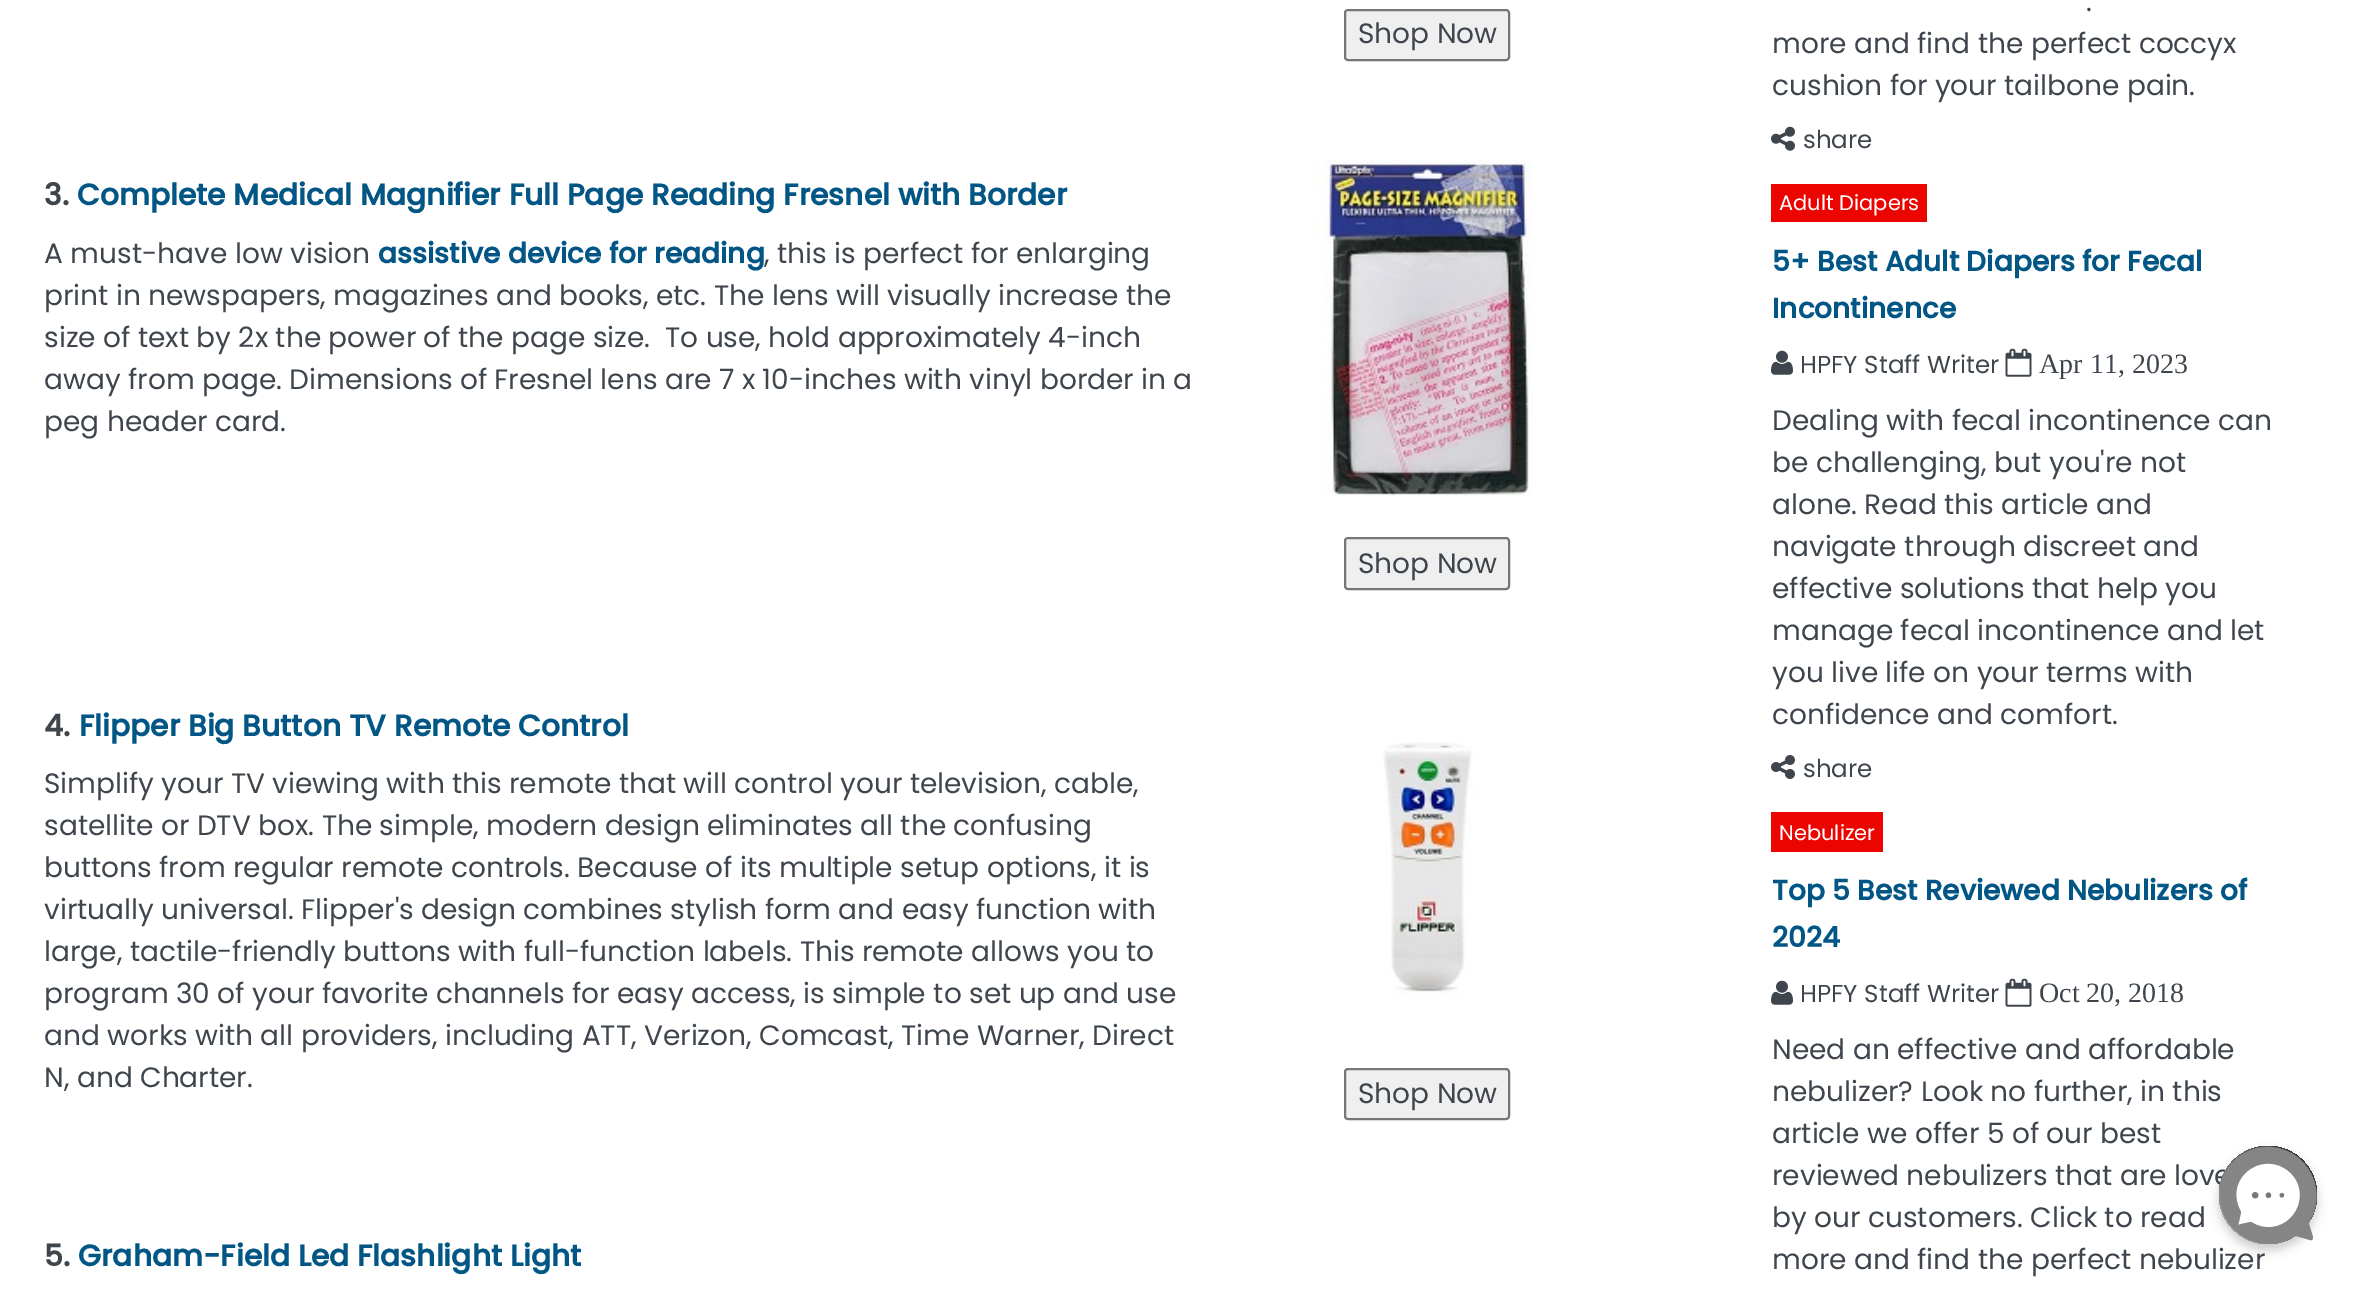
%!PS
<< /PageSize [2366 1294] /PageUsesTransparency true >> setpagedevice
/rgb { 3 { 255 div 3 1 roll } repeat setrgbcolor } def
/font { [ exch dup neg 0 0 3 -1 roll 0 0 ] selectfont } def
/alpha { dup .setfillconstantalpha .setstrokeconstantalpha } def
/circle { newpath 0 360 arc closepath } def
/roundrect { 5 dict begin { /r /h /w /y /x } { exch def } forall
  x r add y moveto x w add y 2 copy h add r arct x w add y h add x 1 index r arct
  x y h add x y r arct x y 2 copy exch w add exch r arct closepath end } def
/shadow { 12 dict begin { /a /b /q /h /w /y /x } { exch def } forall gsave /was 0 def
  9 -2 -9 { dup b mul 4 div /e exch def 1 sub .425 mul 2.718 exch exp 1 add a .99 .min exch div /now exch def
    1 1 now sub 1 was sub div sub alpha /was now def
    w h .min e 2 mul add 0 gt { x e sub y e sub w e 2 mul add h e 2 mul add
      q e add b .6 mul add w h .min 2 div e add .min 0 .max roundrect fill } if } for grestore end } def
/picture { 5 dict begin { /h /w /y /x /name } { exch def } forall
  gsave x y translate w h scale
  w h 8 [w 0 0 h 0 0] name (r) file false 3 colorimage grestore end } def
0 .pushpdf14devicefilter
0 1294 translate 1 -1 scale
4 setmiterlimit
255 255 255 rgb
0 0 2366 1294 rectfill
239 239 239 rgb
1345 10 164 50 3 roundrect gsave fill grestore
118 118 118 rgb
2 setlinewidth
stroke
(img/1.rgb) 1313 159 220 337 picture
239 239 239 rgb
1345 538 164 51 3 roundrect gsave fill grestore
118 118 118 rgb
stroke
(img/2.rgb) 1383 742 91 254 picture
239 239 239 rgb
1345 1069 164 50 3 roundrect gsave fill grestore
118 118 118 rgb
stroke
(img/3.rgb) 1771 126 24 25 picture
235 4 0 rgb
1771 184 156 38 rectfill
(img/4.rgb) 1771 350 22 25 picture
(img/5.rgb) 2005 348 27 29 picture
(img/6.rgb) 1771 755 24 24 picture
1771 812 112 40 rectfill
(img/4.rgb) 1771 980 22 25 picture
(img/5.rgb) 2005 978 27 29 picture
0 0 0 rgb
2219 1152 98 98 49 5 0.2 shadow
/Poppins-Regular 28 font
62 69 76 rgb
1358 43 moveto (Shop Now) show
/Poppins-Bold 29.75 font
44 205 moveto (3.) show
2 86 133 rgb
77 205 moveto (Complete Medical Magnifier Full Page Reading Fresnel with Border) show
/Poppins-Regular 28 font
62 69 76 rgb
44 263 moveto (A must-have low vision) show
/Poppins-Bold 28 font
2 86 133 rgb
378 263 moveto (assistive device for reading) show
/Poppins-Regular 28 font
62 69 76 rgb
[
  [(, this is perfect for enlarging) 764 263]
  [(print in newspapers, magazines and books, etc. The lens will visually increase the) 44 305]
  [(size of text by 2x the power of the page size.  To use, hold approximately 4-inch) 44 347]
  [(away from page. Dimensions of Fresnel lens are 7 x 10-inches with vinyl border in a) 44 389]
  [(peg header card.) 44 431]
  [(Shop Now) 1358 573]
] { aload pop moveto show } forall
/Poppins-Bold 29.75 font
44 736 moveto (4.) show
2 86 133 rgb
79 736 moveto (Flipper Big Button TV Remote Control) show
/Poppins-Regular 28 font
62 69 76 rgb
[
  [(Simplify your TV viewing with this remote that will control your television, cable,) 44 793]
  [(satellite or DTV box. The simple, modern design eliminates all the confusing) 44 835]
  [(buttons from regular remote controls. Because of its multiple setup options, it is) 44 877]
  [(virtually universal. Flipper's design combines stylish form and easy function with) 44 919]
  [(large, tactile-friendly buttons with full-function labels. This remote allows you to) 44 961]
  [(program 30 of your favorite channels for easy access, is simple to set up and use) 44 1003]
  [(and works with all providers, including ATT, Verizon, Comcast, Time Warner, Direct) 44 1045]
  [(N, and Charter.) 44 1087]
  [(Shop Now) 1358 1103]
] { aload pop moveto show } forall
/Poppins-Bold 29.75 font
44 1266 moveto (5.) show
2 86 133 rgb
78 1266 moveto (Graham-Field Led Flashlight Light) show
/Poppins-Regular 28 font
62 69 76 rgb
[
  [(.) 2086 11]
  [(more and find the perfect coccyx) 1772 53]
  [(cushion for your tailbone pain.) 1772 95]
] { aload pop moveto show } forall
/Poppins-Regular 24.5 font
1803 148 moveto (share) show
/Poppins-Regular 21 font
255 255 255 rgb
1779 210 moveto (Adult Diapers) show
/Poppins-Bold 28 font
2 86 133 rgb
1772 271 moveto (5+ Best Adult Diapers for Fecal) show
1772 318 moveto (Incontinence) show
/Poppins-Regular 24.5 font
62 69 76 rgb
1800 373 moveto (HPFY Staff Writer) show
/LiberationSerif-Regular 28 font
2039 373 moveto (Apr 11, 2023) show
/Poppins-Regular 28 font
[
  [(Dealing with fecal incontinence can) 1772 430]
  [(be challenging, but you're not) 1772 472]
  [(alone. Read this article and) 1772 514]
  [(navigate through discreet and) 1772 556]
  [(effective solutions that help you) 1772 598]
  [(manage fecal incontinence and let) 1772 640]
  [(you live life on your terms with) 1772 682]
  [(confidence and comfort.) 1772 724]
] { aload pop moveto show } forall
/Poppins-Regular 24.5 font
1803 777 moveto (share) show
/Poppins-Regular 21 font
255 255 255 rgb
1779 840 moveto (Nebulizer) show
/Poppins-Bold 28 font
2 86 133 rgb
1772 900 moveto (Top 5 Best Reviewed Nebulizers of) show
1772 947 moveto (2024) show
/Poppins-Regular 24.5 font
62 69 76 rgb
1800 1002 moveto (HPFY Staff Writer) show
/LiberationSerif-Regular 28 font
2039 1002 moveto (Oct 20, 2018) show
/Poppins-Regular 28 font
[
  [(Need an effective and affordable) 1772 1059]
  [(nebulizer? Look no further, in this) 1772 1101]
  [(article we offer 5 of our best) 1772 1143]
  [(reviewed nebulizers that are love) 1772 1185]
  [(by our customers. Click to read) 1772 1227]
  [(more and find the perfect nebulizer) 1772 1269]
] { aload pop moveto show } forall
gsave 2268 1195 49 circle clip newpath
<< /ShadingType 2 /ColorSpace /DeviceRGB /Coords [2219 1244 2317 1146] /Extend [true true] /Function << /FunctionType 2 /Domain [0 1] /C0 [0.702 0.702 0.702] /C1 [0.133 0.133 0.133] /N 1 >> >> shfill grestore
133 133 133 rgb
2302 1161 moveto 2283 1142 2251 1142 2233 1162 curveto 2215 1181 2216 1211 2234 1229 curveto 2250 1245 2274 1248 2293 1237 curveto 2294 1236 2295 1236 2296 1236 curveto 2310 1240 lineto 2312 1241 2313 1239 2313 1237 curveto 2309 1224 lineto 2309 1223 2309 1221 2310 1220 curveto 2321 1202 2318 1177 2302 1161 curveto closepath fill
255 255 255 rgb
2290 1218 moveto 2303 1205 2303 1184 2289 1172 curveto 2277 1161 2258 1161 2246 1173 curveto 2235 1183 2234 1199 2241 1211 curveto 2241 1212 2241 1213 2241 1214 curveto 2239 1223 lineto 2238 1224 2239 1225 2240 1224 curveto 2249 1222 lineto 2252 1222 lineto 2264 1230 2280 1228 2290 1218 curveto closepath fill
(img/7.rgb) 2251 1192 34 7 picture
.poppdf14devicefilter showpage
